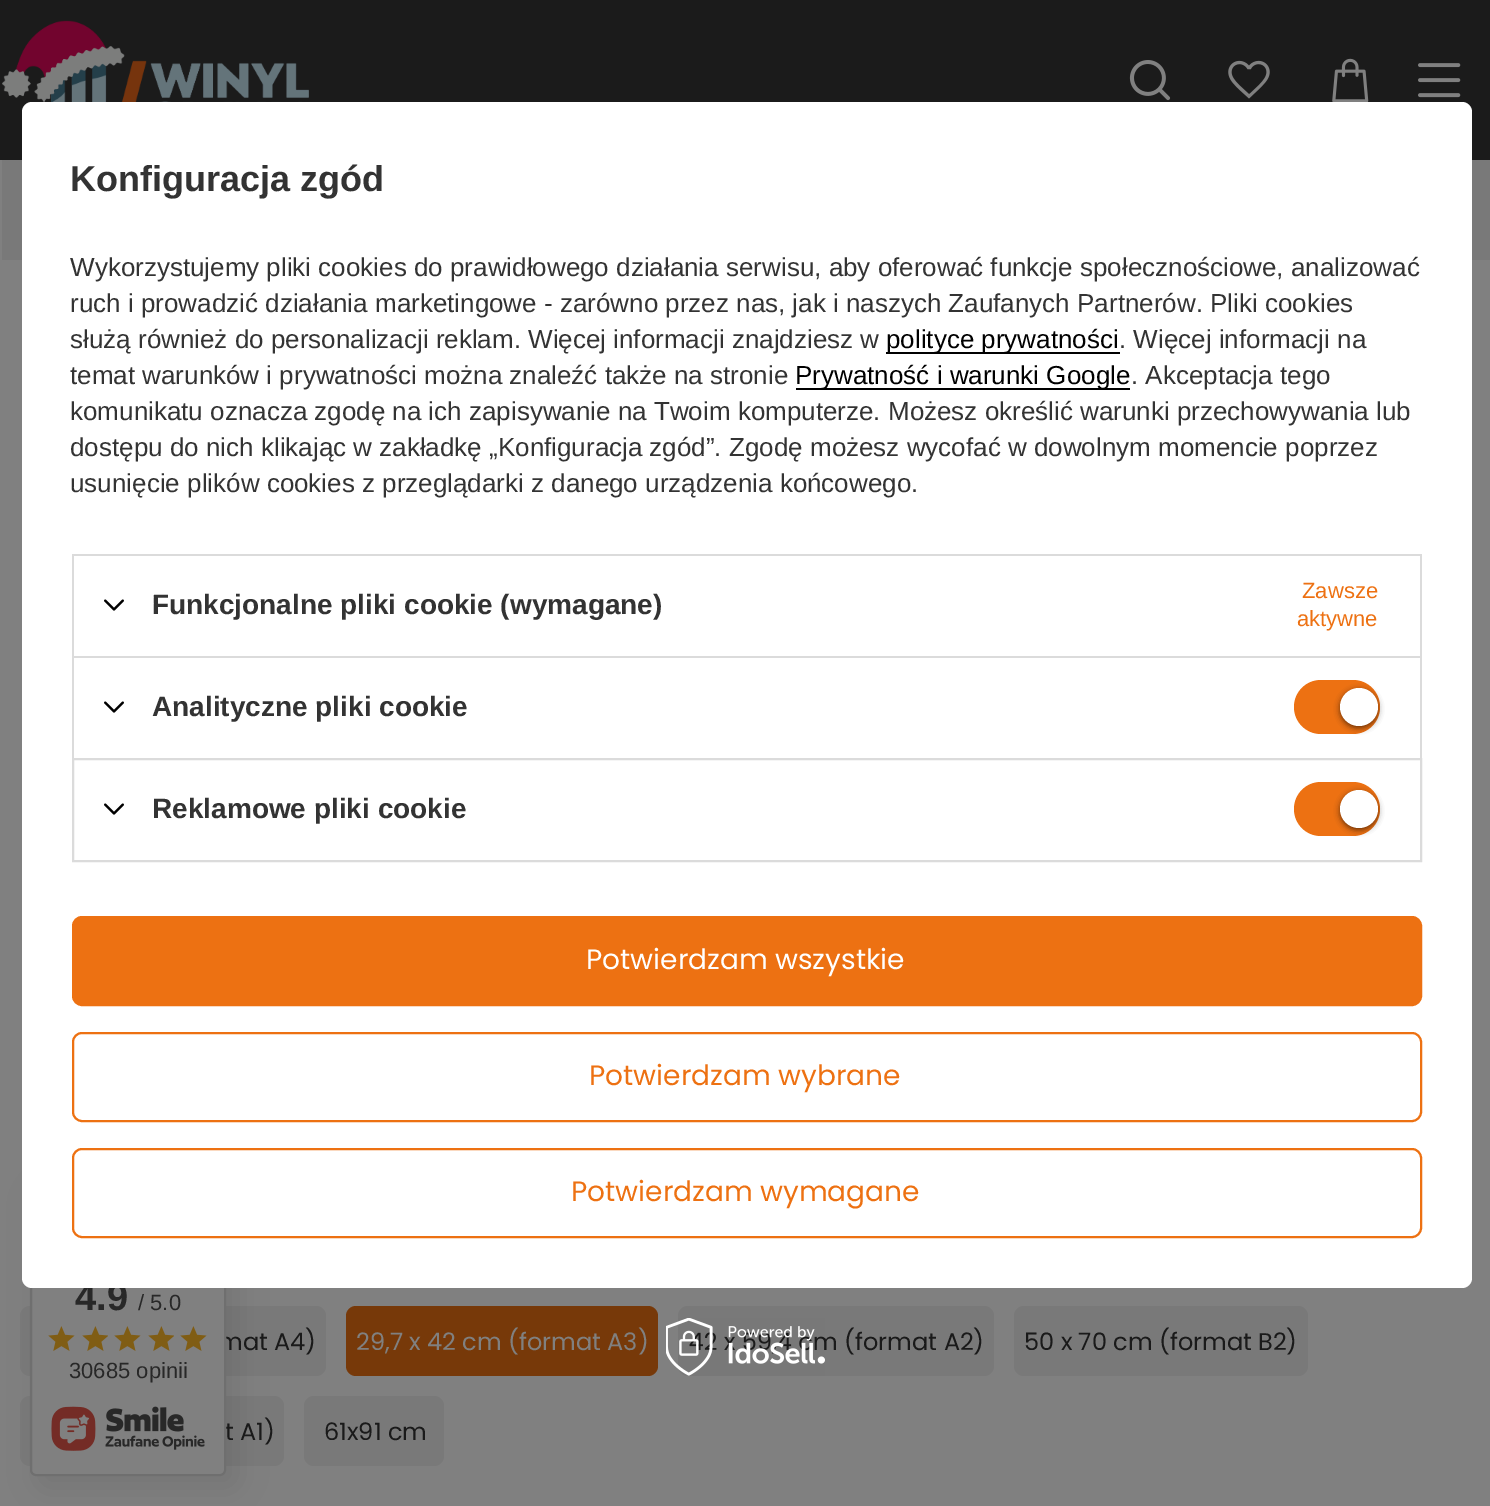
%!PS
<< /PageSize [1490 1506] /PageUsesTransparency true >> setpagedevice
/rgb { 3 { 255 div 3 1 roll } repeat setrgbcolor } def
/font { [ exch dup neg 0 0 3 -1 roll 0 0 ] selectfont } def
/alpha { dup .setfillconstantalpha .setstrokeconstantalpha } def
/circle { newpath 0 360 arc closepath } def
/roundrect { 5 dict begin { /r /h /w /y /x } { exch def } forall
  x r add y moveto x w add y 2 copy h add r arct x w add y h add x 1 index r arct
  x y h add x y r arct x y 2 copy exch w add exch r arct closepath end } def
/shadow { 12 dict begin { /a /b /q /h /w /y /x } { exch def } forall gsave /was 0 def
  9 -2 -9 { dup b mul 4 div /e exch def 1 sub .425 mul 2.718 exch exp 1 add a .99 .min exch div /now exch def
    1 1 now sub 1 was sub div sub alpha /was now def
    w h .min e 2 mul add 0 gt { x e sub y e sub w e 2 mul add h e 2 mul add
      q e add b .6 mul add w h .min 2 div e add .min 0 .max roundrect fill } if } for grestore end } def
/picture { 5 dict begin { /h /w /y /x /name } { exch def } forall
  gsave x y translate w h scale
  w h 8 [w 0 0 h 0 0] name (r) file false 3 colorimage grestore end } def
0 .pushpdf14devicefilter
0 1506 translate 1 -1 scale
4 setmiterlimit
128 128 128 rgb
0 0 1490 1506 rectfill
121 121 121 rgb
20 1306 306 70 10 roundrect fill
20 1396 264 70 10 roundrect fill
0 0 0 rgb
40 1192 196 294 6 15 0.1 shadow
27 27 27 rgb
0 0 1490 160 rectfill
(img/6.rgb) 2 20 307 82 picture
(img/7.rgb) 1129 60 42 41 picture
(img/8.rgb) 1228 60 42 39 picture
(img/9.rgb) 1332 58 37 44 picture
(img/10.rgb) 1418 63 43 35 picture
121 121 121 rgb
2 160 1488 100 rectfill
119 57 9 rgb
346 1306 312 70 10 roundrect fill
121 121 121 rgb
678 1306 316 70 10 roundrect fill
1014 1306 294 70 10 roundrect fill
304 1396 140 70 10 roundrect fill
/Poppins-Regular 24 font
26 26 26 rgb
218 1350 moveto (mat A4\)) show
128 128 128 rgb
356 1350 moveto (29,7 x 42 cm \(format A3\)) show
26 26 26 rgb
689 1350 moveto (42 x 59,4 cm \(format A2\)) show
(img/2.rgb) 666 1318 159 58 picture
1024 1350 moveto (50 x 70 cm \(format B2\)) show
225 1440 moveto (t A1\)) show
128 128 128 rgb
31 1183 194 292 5 roundrect gsave fill grestore
111 111 111 rgb
2 setlinewidth
stroke
/LiberationSans-Bold 38 font
40 40 40 rgb
75 1310 moveto (4.9) show
255 255 255 rgb
22 102 1450 1186 10 roundrect fill
219 219 219 rgb
73 759 1348 102 rectstroke
237 113 18 rgb
1294 782 86 54 27 roundrect fill
0 0 0 rgb
1340 792 38 38 19 3 0.56 shadow
255 255 255 rgb
1359 809 19 circle fill
(img/1.rgb) 104 803 20 12 picture
/LiberationSans-Bold 28 font
51 51 51 rgb
152 818 moveto (Reklamowe pliki cookie) show
237 113 18 rgb
1294 680 86 54 27 roundrect fill
0 0 0 rgb
1340 690 38 38 19 3 0.56 shadow
255 255 255 rgb
1359 707 19 circle fill
(img/1.rgb) 104 701 20 12 picture
51 51 51 rgb
152 716 moveto (Analityczne pliki cookie) show
(img/1.rgb) 104 599 20 12 picture
152 614 moveto (Funkcjonalne pliki cookie \(wymagane\)) show
/LiberationSans-Regular 26 font
[
  [(usunięcie plików cookies z przeglądarki z danego urządzenia końcowego.) 70 492]
  [(dostępu do nich klikając w zakładkę „Konfiguracja zgód”. Zgodę możesz wycofać w dowolnym momencie poprzez) 70 456]
  [(komunikatu oznacza zgodę na ich zapisywanie na Twoim komputerze. Możesz określić warunki przechowywania lub) 70 420]
  [(. Akceptacja tego) 1131 384]
] { aload pop moveto show } forall
0 0 0 rgb
796 388 334 2 rectfill
795 384 moveto (Prywatność i warunki Google) show
51 51 51 rgb
70 384 moveto (temat warunków i prywatności można znaleźć także na stronie) show
1119 348 moveto (. Więcej informacji na) show
0 0 0 rgb
886 352 234 2 rectfill
886 348 moveto (polityce prywatności) show
51 51 51 rgb
[
  [(służą również do personalizacji reklam. Więcej informacji znajdziesz w) 70 348]
  [(ruch i prowadzić działania marketingowe - zarówno przez nas, jak i naszych Zaufanych Partnerów. Pliki cookies) 70 312]
  [(Wykorzystujemy pliki cookies do prawidłowego działania serwisu, aby oferować funkcje społecznościowe, analizować) 70 276]
] { aload pop moveto show } forall
/LiberationSans-Regular 22 font
237 113 18 rgb
1297 626 moveto (aktywne) show
1302 598 moveto (Zawsze) show
/LiberationSans-Bold 36 font
51 51 51 rgb
70 191 moveto (Konfiguracja zgód) show
[
  [72 656 1350 2 219 219 219]
  [72 656 2 102 219 219 219]
  [1420 656 2 102 219 219 219]
  [72 554 1350 2 219 219 219]
  [72 554 2 102 219 219 219]
  [1420 554 2 102 219 219 219]
] { aload pop rgb rectfill } forall
237 113 18 rgb
73 917 1348 88 9 roundrect gsave fill grestore
stroke
/Poppins-Regular 28 font
255 255 255 rgb
586 969 moveto (Potwierdzam wszystkie) show
237 113 18 rgb
73 1149 1348 88 9 roundrect stroke
571 1201 moveto (Potwierdzam wymagane) show
73 1033 1348 88 9 roundrect stroke
589 1085 moveto (Potwierdzam wybrane) show
(img/5.rgb) 51 1406 154 45 picture
(img/3.rgb) 180 1326 27 25 picture
(img/4.rgb) 148 1326 26 25 picture
(img/3.rgb) 114 1326 27 25 picture
(img/4.rgb) 82 1326 26 25 picture
(img/3.rgb) 48 1326 27 25 picture
/LiberationSans-Regular 22 font
40 40 40 rgb
69 1378 moveto (30685 opinii) show
138 1310 moveto (/ 5.0) show
/Poppins-Regular 24 font
26 26 26 rgb
324 1440 moveto (61x91 cm) show
.poppdf14devicefilter showpage
